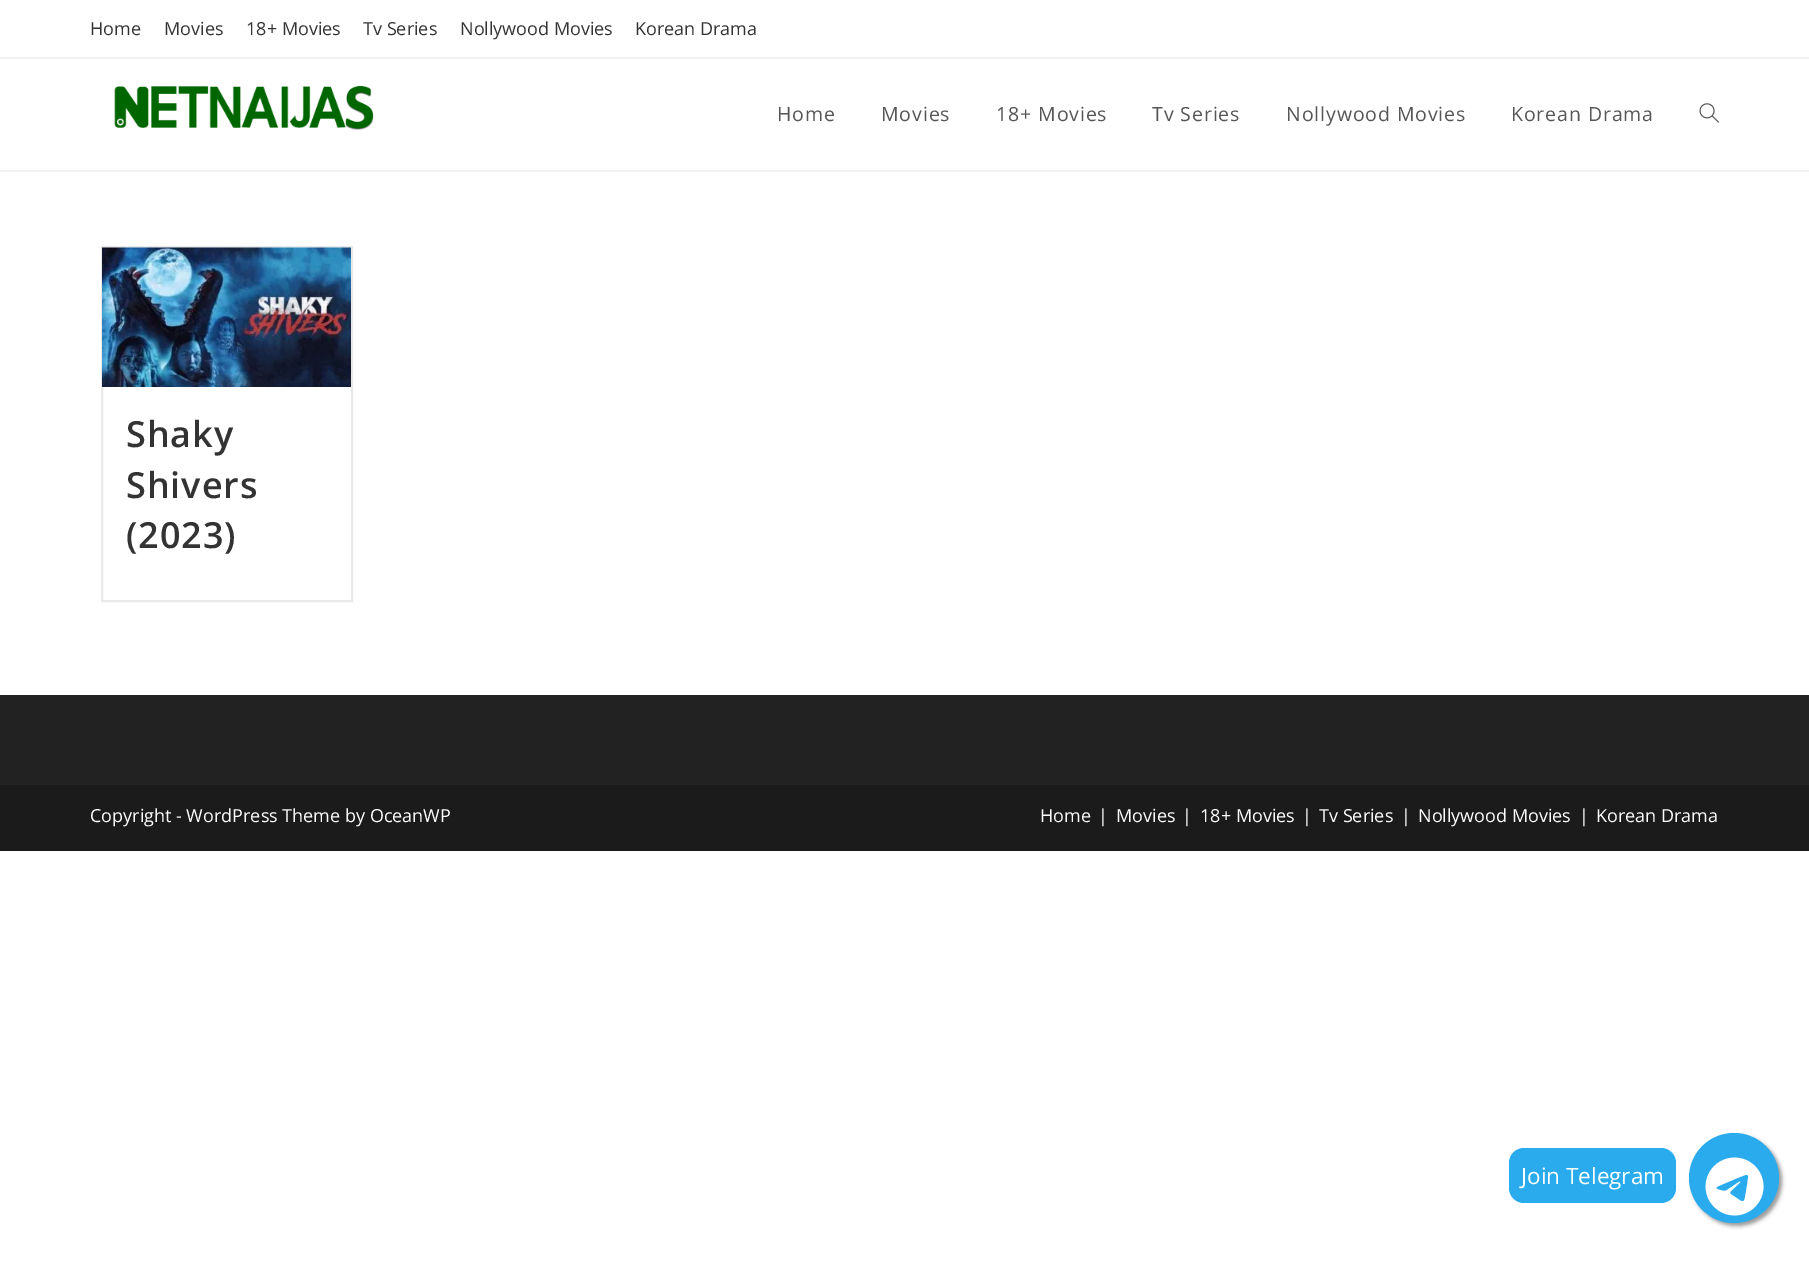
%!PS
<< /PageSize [1809 1288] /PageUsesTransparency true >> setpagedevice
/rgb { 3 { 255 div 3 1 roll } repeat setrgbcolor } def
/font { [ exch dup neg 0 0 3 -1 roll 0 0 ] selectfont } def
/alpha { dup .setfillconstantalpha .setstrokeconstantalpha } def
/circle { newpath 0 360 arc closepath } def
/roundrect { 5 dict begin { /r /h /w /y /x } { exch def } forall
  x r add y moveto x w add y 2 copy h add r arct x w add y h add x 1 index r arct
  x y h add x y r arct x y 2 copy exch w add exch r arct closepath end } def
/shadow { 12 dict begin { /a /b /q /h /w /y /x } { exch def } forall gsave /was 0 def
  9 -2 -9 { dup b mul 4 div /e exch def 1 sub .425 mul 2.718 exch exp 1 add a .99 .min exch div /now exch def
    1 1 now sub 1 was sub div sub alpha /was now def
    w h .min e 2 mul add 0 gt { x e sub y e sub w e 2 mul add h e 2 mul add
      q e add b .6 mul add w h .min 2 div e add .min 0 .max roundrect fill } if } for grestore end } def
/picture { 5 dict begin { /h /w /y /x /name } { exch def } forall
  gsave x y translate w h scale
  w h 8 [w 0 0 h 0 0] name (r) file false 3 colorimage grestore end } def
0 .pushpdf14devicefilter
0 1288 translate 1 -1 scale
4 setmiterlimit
255 255 255 rgb
0 0 1809 1288 rectfill
241 241 241 rgb
0 57 1809 2 rectfill
0 170 1809 2 rectfill
(img/1.rgb) 114 85 260 45 picture
(img/2.rgb) 1699 103 20 20 picture
233 233 233 rgb
2 setlinewidth
102 247 250 354 rectstroke
(img/3.rgb) 102 247 249 140 picture
27 27 27 rgb
0 785 1809 66 rectfill
34 34 34 rgb
0 695 1809 90 rectfill
153 153 153 rgb
1692 1136 90 90 45 2 1 shadow
42 171 238 rgb
1734 1178 45 circle fill
1509 1148 167 55 15 roundrect fill
(img/4.rgb) 1705 1157 59 59 picture
/OpenSans-Regular 18 font
51 51 51 rgb
[
  [(Home) 90 35]
  [(Movies) 164 35]
  [(18+ Movies) 246 35]
  [(Tv Series) 363 35]
  [(Nollywood Movies) 460 35]
  [(Korean Drama) 635 35]
] { aload pop moveto show } forall
/OpenSans-Regular 19.5 font
85 85 85 rgb
777 121 moveto 0.9 0 (Home) ashow
881 121 moveto 0.9 0 (Movies) ashow
996 121 moveto 0.9 0 (18+ Movies) ashow
1152 121 moveto 0.9 0 (Tv Series) ashow
1286 121 moveto 0.9 0 (Nollywood Movies) ashow
1511 121 moveto 0.9 0 (Korean Drama) ashow
/OpenSans-SemiBold 36 font
51 51 51 rgb
126 447 moveto 0.9 0 (Shaky) ashow
126 498 moveto 0.9 0 (Shivers) ashow
126 548 moveto 0.9 0 (\(2023\)) ashow
/OpenSans-Regular 18 font
255 255 255 rgb
[
  [(Copyright - WordPress Theme by OceanWP) 90 822]
  [(Home) 1040 822]
  [(|) 1098 822]
  [(Movies) 1116 822]
  [(|) 1182 822]
  [(18+ Movies) 1200 822]
  [(|) 1302 822]
  [(Tv Series) 1319 822]
  [(|) 1401 822]
  [(Nollywood Movies) 1418 822]
  [(|) 1579 822]
  [(Korean Drama) 1596 822]
] { aload pop moveto show } forall
/OpenSans-Regular 22.5 font
1521 1184 moveto (Join Telegram) show
.poppdf14devicefilter showpage
